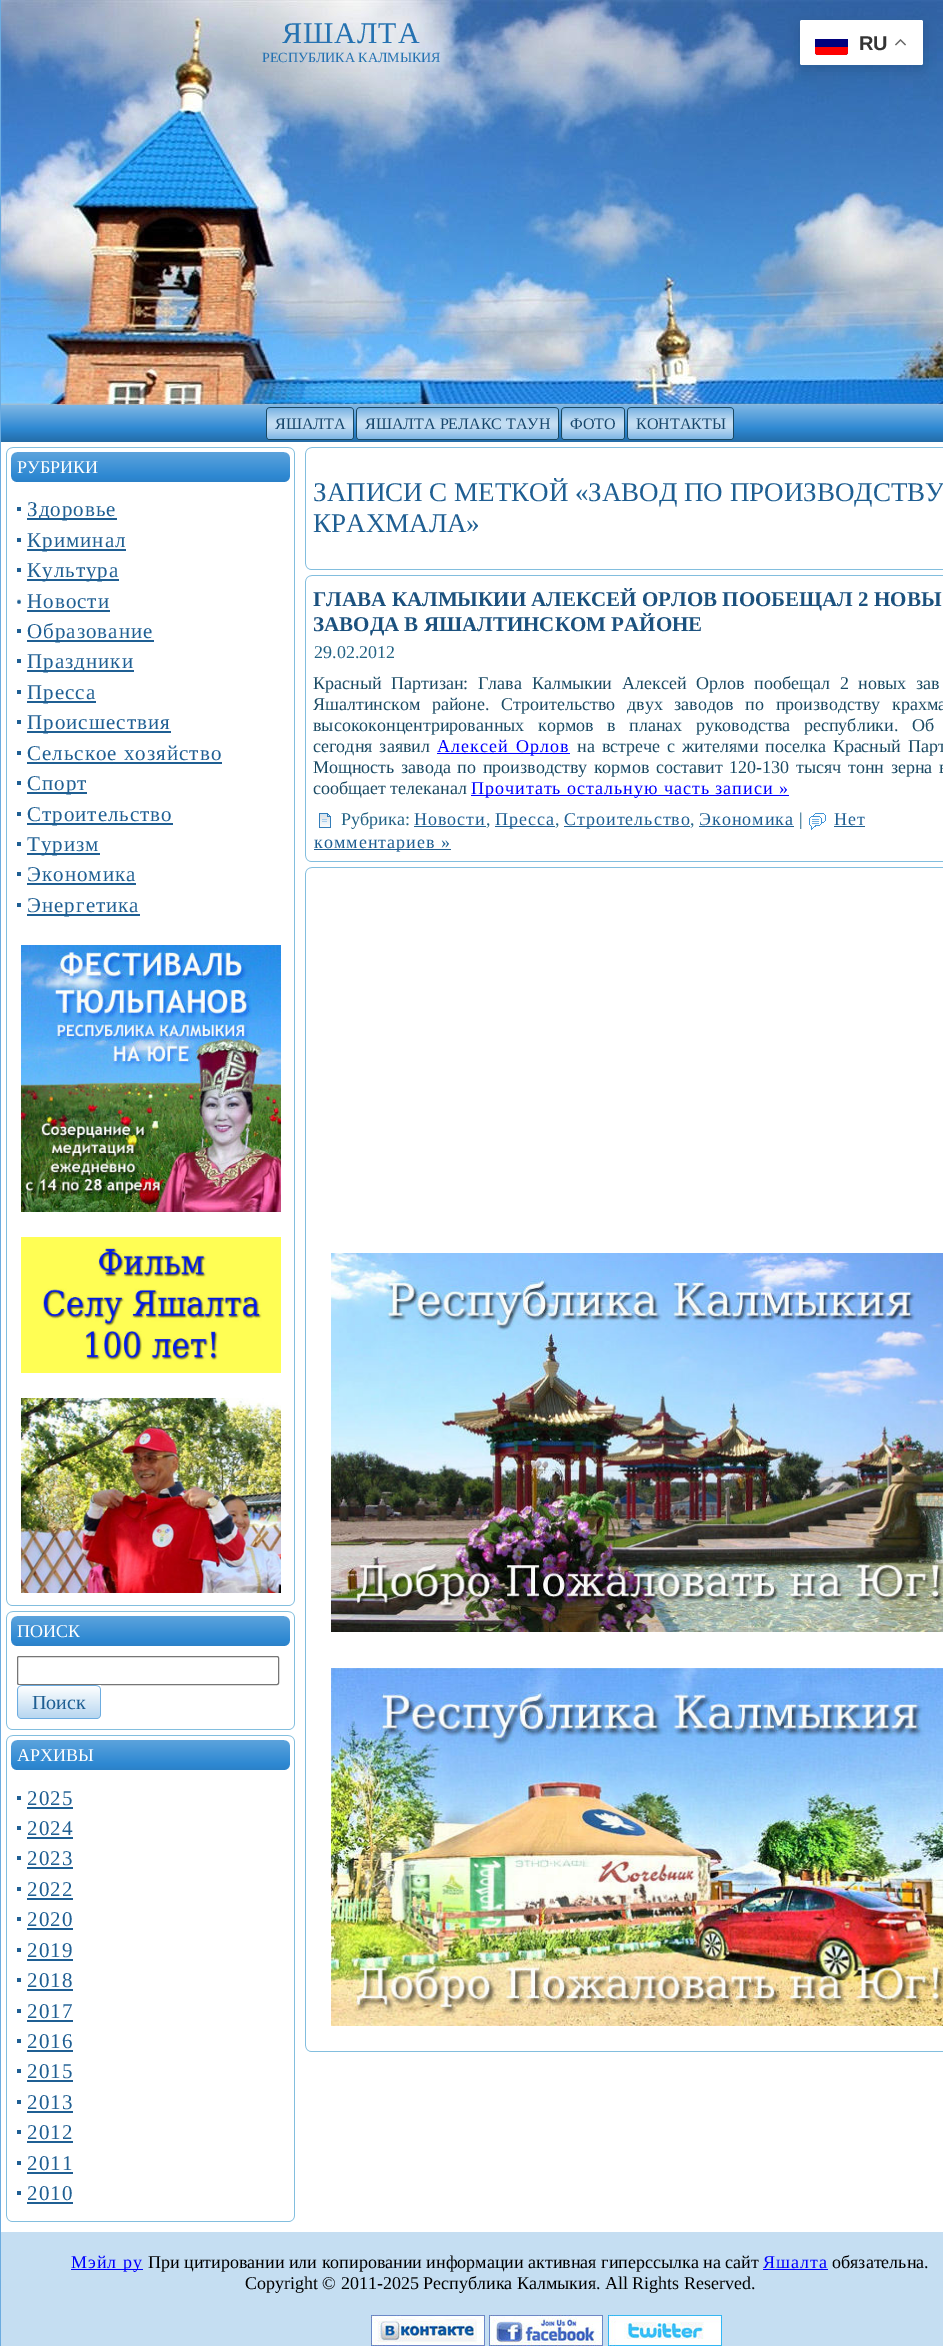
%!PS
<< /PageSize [943 2346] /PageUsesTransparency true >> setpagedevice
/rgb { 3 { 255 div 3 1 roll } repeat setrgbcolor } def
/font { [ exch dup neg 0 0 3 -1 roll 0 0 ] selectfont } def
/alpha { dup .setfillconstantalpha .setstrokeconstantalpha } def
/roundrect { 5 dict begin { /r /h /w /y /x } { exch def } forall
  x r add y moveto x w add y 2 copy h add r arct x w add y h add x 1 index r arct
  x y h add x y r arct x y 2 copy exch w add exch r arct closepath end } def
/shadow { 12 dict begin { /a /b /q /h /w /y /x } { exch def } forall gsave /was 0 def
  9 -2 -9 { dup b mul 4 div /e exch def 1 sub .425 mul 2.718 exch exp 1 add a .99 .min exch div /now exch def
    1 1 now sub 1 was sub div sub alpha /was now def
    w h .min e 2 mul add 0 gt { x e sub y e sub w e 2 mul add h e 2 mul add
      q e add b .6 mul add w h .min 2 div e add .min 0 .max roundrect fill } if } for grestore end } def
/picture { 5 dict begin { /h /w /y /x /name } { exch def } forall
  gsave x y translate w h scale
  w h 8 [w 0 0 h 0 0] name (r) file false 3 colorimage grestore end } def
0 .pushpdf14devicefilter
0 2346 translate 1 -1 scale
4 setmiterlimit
255 255 255 rgb
0 0 943 2346 rectfill
108 172 224 rgb
0 0 1 2346 rectfill
(img/1.rgb) 1 0 942 405 picture
(img/2.rgb) 1 405 942 37 picture
(img/3.rgb) 266 407 84 33 picture
(img/4.rgb) 350 407 4 33 picture
(img/5.rgb) 356 407 199 33 picture
(img/4.rgb) 555 407 4 33 picture
(img/6.rgb) 561 407 60 33 picture
(img/4.rgb) 621 407 4 33 picture
(img/7.rgb) 627 407 103 33 picture
(img/4.rgb) 730 407 4 33 picture
(img/8.rgb) 6 447 7 7 picture
130 190 222 rgb
13 447 275 1 rectfill
(img/9.rgb) 288 447 7 7 picture
6 454 1 1145 rectfill
(img/10.rgb) 11 452 273 30 picture
(img/11.rgb) 284 452 6 30 picture
[
  [17 507 4 4 31 95 147]
  [27 518 90 2 31 95 147]
  [17 538 4 4 31 95 147]
  [27 549 99 2 31 95 147]
  [17 568 4 4 31 95 147]
  [27 579 92 2 31 95 147]
] { aload pop rgb rectfill } forall
(img/12.rgb) 17 599 4 5 picture
[
  [27 610 83 2 31 95 147]
  [17 629 4 4 31 95 147]
  [27 640 127 2 31 95 147]
  [17 659 4 4 31 95 147]
  [27 670 107 2 31 95 147]
  [17 690 4 4 31 95 147]
  [27 701 69 2 31 95 147]
  [17 720 4 4 31 95 147]
  [27 731 144 2 31 95 147]
  [17 751 4 4 31 95 147]
  [27 762 195 2 31 95 147]
  [17 781 4 4 31 95 147]
  [27 792 60 2 31 95 147]
  [17 812 4 4 31 95 147]
  [27 823 146 2 31 95 147]
  [17 842 4 4 31 95 147]
  [27 853 73 2 31 95 147]
  [17 872 4 4 31 95 147]
  [27 883 109 2 31 95 147]
  [17 903 4 4 31 95 147]
  [27 914 113 2 31 95 147]
] { aload pop rgb rectfill } forall
(img/13.rgb) 21 945 260 267 picture
(img/14.rgb) 21 1237 260 136 picture
(img/15.rgb) 21 1398 260 195 picture
130 190 222 rgb
294 454 1 1145 rectfill
(img/16.rgb) 6 1599 7 7 picture
13 1605 275 1 rectfill
(img/17.rgb) 288 1599 7 7 picture
(img/8.rgb) 6 1611 7 7 picture
13 1611 275 1 rectfill
(img/9.rgb) 288 1611 7 7 picture
6 1618 1 105 rectfill
(img/10.rgb) 11 1616 273 30 picture
(img/11.rgb) 284 1616 6 30 picture
118 118 118 rgb
17.5 1656.5 261 28 1.5 roundrect stroke
(img/18.rgb) 17 1685 79 34 picture
(img/19.rgb) 96 1685 5 34 picture
130 190 222 rgb
294 1618 1 105 rectfill
(img/16.rgb) 6 1723 7 7 picture
13 1729 275 1 rectfill
(img/17.rgb) 288 1723 7 7 picture
(img/8.rgb) 6 1735 7 7 picture
13 1735 275 1 rectfill
(img/9.rgb) 288 1735 7 7 picture
6 1742 1 473 rectfill
(img/10.rgb) 11 1740 273 30 picture
(img/11.rgb) 284 1740 6 30 picture
[
  [17 1796 4 4 31 95 147]
  [27 1807 46 2 31 95 147]
  [17 1826 4 4 31 95 147]
  [27 1837 46 2 31 95 147]
  [17 1856 4 4 31 95 147]
  [27 1867 46 2 31 95 147]
  [17 1887 4 4 31 95 147]
  [27 1898 46 2 31 95 147]
  [17 1917 4 4 31 95 147]
  [27 1928 46 2 31 95 147]
  [17 1948 4 4 31 95 147]
  [27 1959 46 2 31 95 147]
  [17 1978 4 4 31 95 147]
  [27 1989 46 2 31 95 147]
  [17 2009 4 4 31 95 147]
  [27 2020 46 2 31 95 147]
  [17 2039 4 4 31 95 147]
  [27 2050 46 2 31 95 147]
  [17 2069 4 4 31 95 147]
  [27 2080 46 2 31 95 147]
  [17 2100 4 4 31 95 147]
  [27 2111 46 2 31 95 147]
  [17 2130 4 4 31 95 147]
  [27 2141 46 2 31 95 147]
  [17 2161 4 4 31 95 147]
  [27 2172 46 2 31 95 147]
  [17 2191 4 4 31 95 147]
  [27 2202 46 2 31 95 147]
  [294 1742 1 473 130 190 222]
] { aload pop rgb rectfill } forall
(img/16.rgb) 6 2215 7 7 picture
13 2221 275 1 rectfill
(img/17.rgb) 288 2215 7 7 picture
(img/8.rgb) 305 447 7 7 picture
312 447 631 1 rectfill
305 454 1 109 rectfill
(img/16.rgb) 305 563 7 7 picture
312 569 631 1 rectfill
(img/8.rgb) 305 575 7 7 picture
[
  [312 575 631 1 130 190 222]
  [305 582 1 273 130 190 222]
  [437 753 133 1 0 0 255]
  [471 795 318 1 0 0 255]
] { aload pop rgb rectfill } forall
(img/20.rgb) 319 813 12 15 picture
[
  [414 826 72 1 31 95 147]
  [495 826 60 1 31 95 147]
  [564 826 126 1 31 95 147]
  [699 826 95 1 31 95 147]
] { aload pop rgb rectfill } forall
(img/21.rgb) 809 813 17 17 picture
834 826 31 1 rectfill
314 849 137 1 rectfill
(img/16.rgb) 305 855 7 7 picture
130 190 222 rgb
312 861 631 1 rectfill
(img/8.rgb) 305 867 7 7 picture
312 867 631 1 rectfill
305 874 1 1171 rectfill
(img/22.rgb) 331 1253 612 379 picture
(img/23.rgb) 331 1668 612 358 picture
(img/16.rgb) 305 2045 7 7 picture
[
  [312 2051 631 1 130 190 222]
  [1 2232 942 114 197 222 242]
  [71 2269 72 1 0 0 255]
  [763 2269 65 1 0 0 255]
] { aload pop rgb rectfill } forall
(img/24.rgb) 371 2315 114 31 picture
(img/25.rgb) 489 2315 114 31 picture
(img/26.rgb) 608 2315 114 31 picture
0 0 0 rgb
800 25 123 45 2 7.5 0.15 shadow
255 255 255 rgb
800 20 123 45 2 roundrect fill
1 1 126 rgb
815 39 moveto 848 39 lineto 848 52 lineto 848 53.5 846.5 55 845 55 curveto 818 55 lineto 816.5 55 815 53.5 815 52 curveto closepath fill
254 1 1 rgb
815 47 moveto 848 47 lineto 848 52 lineto 848 53.5 846.5 55 845 55 curveto 818 55 lineto 816.5 55 815 53.5 815 52 curveto closepath fill
(img/27.rgb) 895 39 11 7 picture
/LiberationSerif-Regular 30 font
37 114 177 rgb
282 43 moveto 1 0 (ЯШАЛТА) ashow
/LiberationSerif-Regular 14 font
262 62 moveto (РЕСПУБЛИКА КАЛМЫКИЯ) show
/LiberationSerif-Regular 16 font
23 71 109 rgb
[
  [(ЯШАЛТА) 275 429]
  [(ЯШАЛТА РЕЛАКС ТАУН) 365 429]
  [(ФОТО) 570 429]
  [(КОНТАКТЫ) 636 429]
] { aload pop moveto show } forall
/LiberationSerif-Regular 18 font
255 255 255 rgb
17 473 moveto (РУБРИКИ) show
/LiberationSerif-Regular 21 font
31 95 147 rgb
27 516 moveto 1 0 (Здоровье) ashow
27 547 moveto 1 0 (Криминал) ashow
27 577 moveto 1 0 (Культура) ashow
27 608 moveto 1 0 (Новости) ashow
27 638 moveto 1 0 (Образование) ashow
27 668 moveto 1 0 (Праздники) ashow
27 699 moveto 1 0 (Пресса) ashow
27 729 moveto 1 0 (Происшествия) ashow
27 760 moveto 1 0 (Сельское хозяйство) ashow
27 790 moveto 1 0 (Спорт) ashow
27 821 moveto 1 0 (Строительство) ashow
27 851 moveto 1 0 (Туризм) ashow
27 881 moveto 1 0 (Экономика) ashow
27 912 moveto 1 0 (Энергетика) ashow
/LiberationSerif-Regular 18 font
255 255 255 rgb
17 1637 moveto (ПОИСК) show
/LiberationSerif-Regular 20 font
31 95 147 rgb
32 1709 moveto (Поиск) show
/LiberationSerif-Regular 18 font
255 255 255 rgb
17 1761 moveto (АРХИВЫ) show
/LiberationSerif-Regular 21 font
31 95 147 rgb
27 1805 moveto 1 0 (2025) ashow
27 1835 moveto 1 0 (2024) ashow
27 1865 moveto 1 0 (2023) ashow
27 1896 moveto 1 0 (2022) ashow
27 1926 moveto 1 0 (2020) ashow
27 1957 moveto 1 0 (2019) ashow
27 1987 moveto 1 0 (2018) ashow
27 2018 moveto 1 0 (2017) ashow
27 2048 moveto 1 0 (2016) ashow
27 2078 moveto 1 0 (2015) ashow
27 2109 moveto 1 0 (2013) ashow
27 2139 moveto 1 0 (2012) ashow
27 2170 moveto 1 0 (2011) ashow
27 2200 moveto 1 0 (2010) ashow
/LiberationSerif-Regular 27 font
313 501 moveto (ЗАПИСИ С МЕТКОЙ «ЗАВОД ПО ПРОИЗВОДСТВУ) show
313 532 moveto (КРАХМАЛА») show
/LiberationSerif-Bold 21 font
27 81 126 rgb
313 606 moveto (ГЛАВА КАЛМЫКИИ АЛЕКСЕЙ ОРЛОВ ПООБЕЩАЛ 2 НОВЫ) show
313 631 moveto (ЗАВОДА В ЯШАЛТИНСКОМ РАЙОНЕ) show
/LiberationSerif-Regular 18 font
35 99 133 rgb
314 658 moveto (29.02.2012) show
27 75 101 rgb
313 689 moveto 5.25 0 32 (Красный Партизан: Глава Калмыкии Алексей Орлов пообещал 2 новых зав) widthshow
313 710 moveto 7.25 0 32 (Яшалтинском районе. Строительство двух заводов по производству крахма) widthshow
313 731 moveto 9 0 32 (высококонцентрированных кормов в планах руководства республики. Об) widthshow
313 752 moveto 2.5 0 32 (сегодня заявил) widthshow
0 0 255 rgb
437 752 moveto 2.5 0 32 1 0 (Алексей Орлов) awidthshow
27 75 101 rgb
577 752 moveto 2.5 0 32 (на встрече с жителями поселка Красный Парт) widthshow
313 773 moveto 2.1 0 32 (Мощность завода по производству кормов составит 120-130 тысяч тонн зерна в) widthshow
313 794 moveto (сообщает телеканал) show
0 0 255 rgb
471 794 moveto 1 0 (Прочитать остальную часть записи ») ashow
35 99 133 rgb
341 825 moveto (Рубрика:) show
31 95 147 rgb
414 825 moveto 1 0 (Новости) ashow
35 99 133 rgb
486 825 moveto (,) show
31 95 147 rgb
495 825 moveto 1 0 (Пресса) ashow
35 99 133 rgb
555 825 moveto (,) show
31 95 147 rgb
564 825 moveto 1 0 (Строительство) ashow
35 99 133 rgb
690 825 moveto (,) show
31 95 147 rgb
699 825 moveto 1 0 (Экономика) ashow
35 99 133 rgb
799 825 moveto (|) show
31 95 147 rgb
834 825 moveto 1 0 (Нет) ashow
314 848 moveto 1 0 (комментариев ») ashow
0 0 255 rgb
71 2268 moveto 1 0 (Мэйл ру) ashow
0 0 0 rgb
148 2268 moveto (При цитировании или копировании информации активная гиперссылка на сайт) show
0 0 255 rgb
763 2268 moveto 1 0 (Яшалта) ashow
0 0 0 rgb
832 2268 moveto (обязательна.) show
245 2289 moveto (Copyright © 2011-2025 Республика Калмыкия. All Rights Reserved.) show
/LiberationSans-Bold 20 font
51 51 51 rgb
859 50 moveto (RU) show
.poppdf14devicefilter showpage
